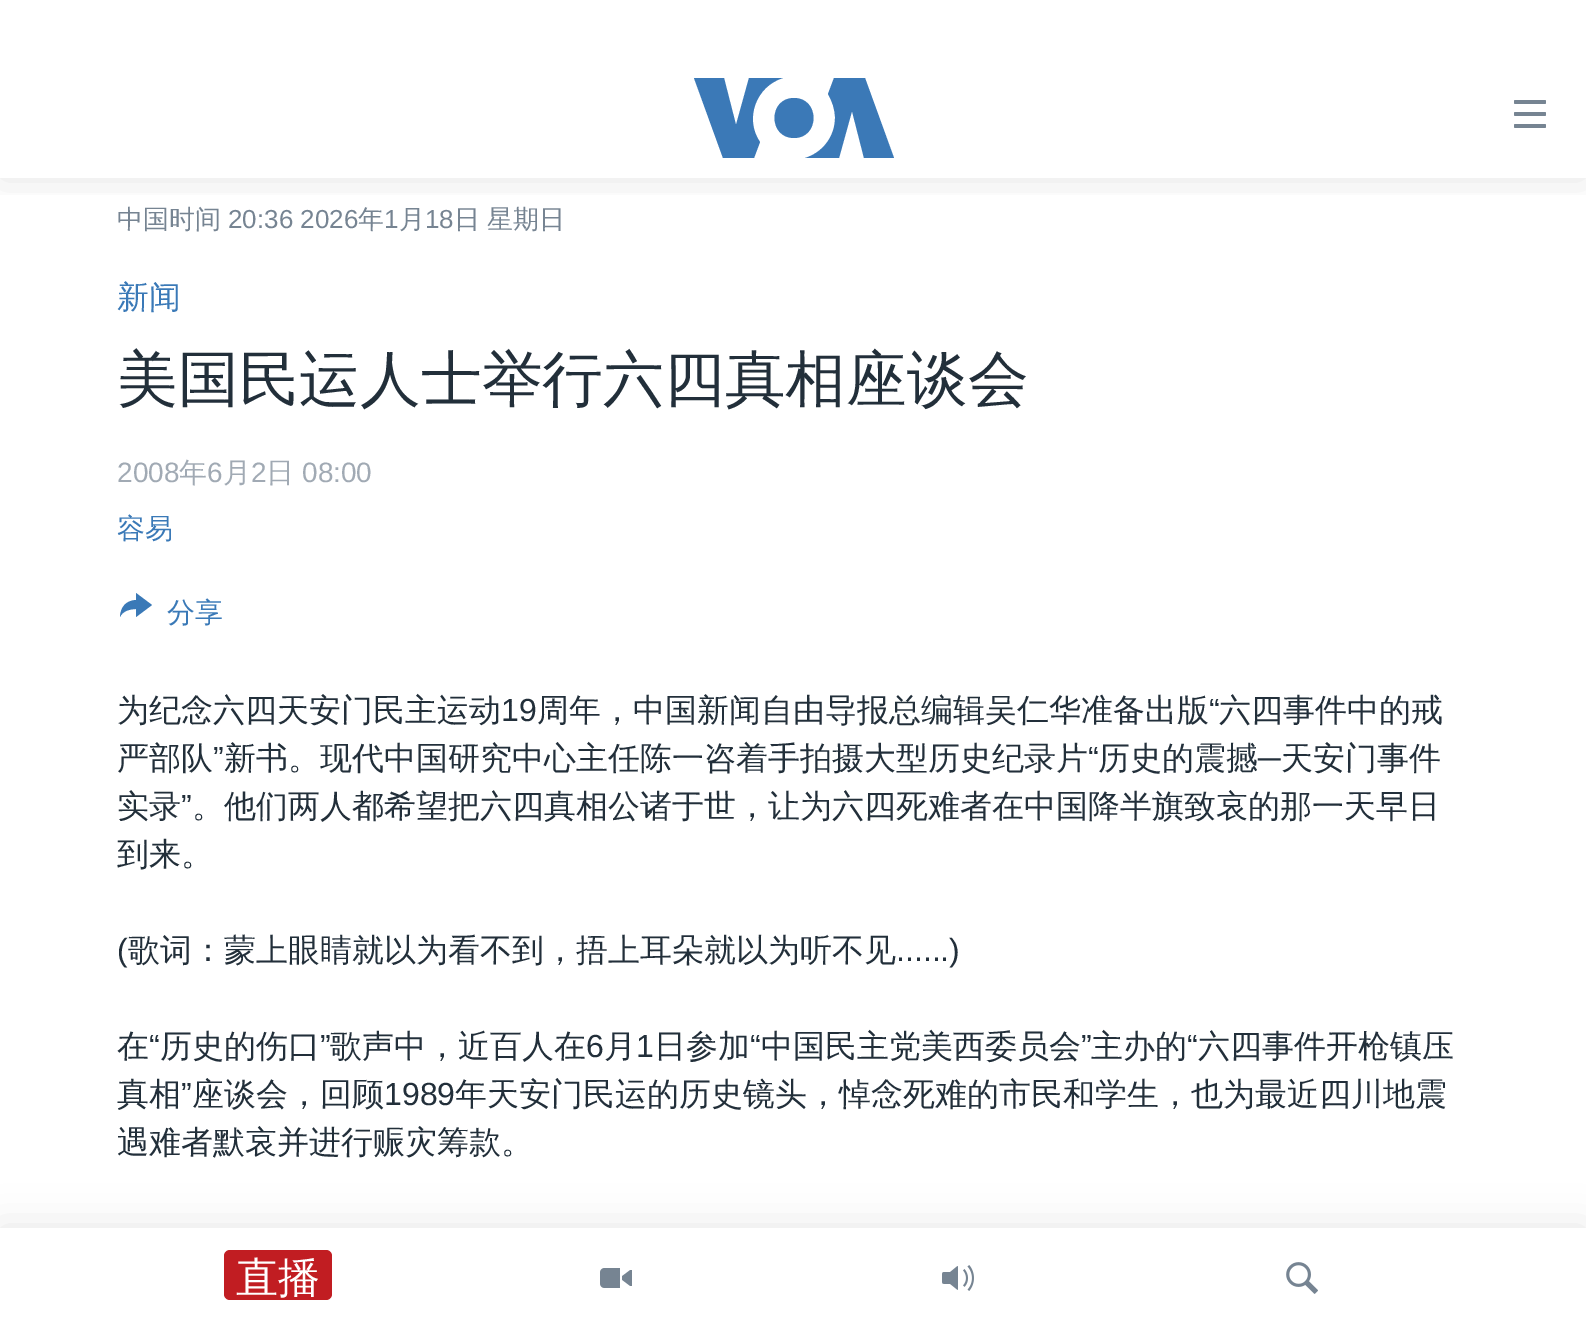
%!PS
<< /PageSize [1586 1327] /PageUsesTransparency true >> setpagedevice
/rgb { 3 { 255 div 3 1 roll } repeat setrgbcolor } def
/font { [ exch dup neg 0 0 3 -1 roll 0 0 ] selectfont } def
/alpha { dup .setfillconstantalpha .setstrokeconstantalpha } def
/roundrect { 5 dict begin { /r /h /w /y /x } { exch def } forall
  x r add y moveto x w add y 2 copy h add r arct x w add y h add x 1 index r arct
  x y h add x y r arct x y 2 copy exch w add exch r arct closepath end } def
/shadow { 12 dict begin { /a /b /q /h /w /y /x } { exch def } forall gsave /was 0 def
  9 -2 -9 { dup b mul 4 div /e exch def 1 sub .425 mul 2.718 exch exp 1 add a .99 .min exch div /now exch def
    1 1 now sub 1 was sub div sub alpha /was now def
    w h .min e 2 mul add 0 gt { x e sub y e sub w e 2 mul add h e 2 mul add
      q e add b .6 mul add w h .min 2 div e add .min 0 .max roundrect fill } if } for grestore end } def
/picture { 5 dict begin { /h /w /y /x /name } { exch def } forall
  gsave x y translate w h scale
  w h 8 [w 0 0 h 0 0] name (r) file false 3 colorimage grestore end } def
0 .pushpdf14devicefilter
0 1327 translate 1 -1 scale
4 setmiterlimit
255 255 255 rgb
0 0 1586 1327 rectfill
gsave
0 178 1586 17 rectclip
0 0 0 rgb
0 52 1586 126 0 20 0.1 shadow
grestore
0 26 1586 26 rectfill
58 121 183 rgb
120 617 moveto 120.5 607 126 600.5 136 600 curveto 136 593 lineto 152 605 lineto 136 617 lineto 136 609 lineto 130 609 122.5 611 120 617 curveto closepath fill
59 121 183 rgb
760 142 moveto 754 158 lineto 723 158 lineto 694 78 lineto 724 78 lineto 736 125 lineto 749 78 lineto 783 78 lineto 756 86 744 119 760 142 curveto closepath 794 98 moveto 768 98 768 138 794 138 curveto 820 138 820 98 794 98 curveto closepath 835 118 moveto 835 137 822 153 805 158 curveto 839 158 lineto 852 111 lineto 864 158 lineto 894 158 lineto 865 78 lineto 834 78 lineto 828 94 lineto 832 101 835 109 835 118 curveto closepath fill
(img/1.rgb) 1514 100 32 28 picture
0 0 0 rgb
0 1228 1586 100 0 20 0.1 shadow
255 255 255 rgb
0 1228 1586 99 rectfill
193 29 34 rgb
224 1250 108 50 6 roundrect fill
(img/2.rgb) 600 1268 32 20 picture
(img/3.rgb) 942 1265 32 26 picture
(img/4.rgb) 1286 1262 32 32 picture
/WenQuanYiZenHei-Medium 26 font
118 132 146 rgb
117 228 moveto (中国时间) show
/LiberationSans-Regular 26 font
228 228 moveto (20:36 2026) show
/WenQuanYiZenHei-Medium 26 font
358 228 moveto (年) show
/LiberationSans-Regular 26 font
384 228 moveto (1) show
/WenQuanYiZenHei-Medium 26 font
399 228 moveto (月) show
/LiberationSans-Regular 26 font
425 228 moveto (18) show
/WenQuanYiZenHei-Medium 26 font
454 228 moveto (日) show
487 228 moveto (星期日) show
/WenQuanYiZenHei-Medium 32 font
58 121 183 rgb
117 308 moveto (新闻) show
/WenQuanYiZenHei-Medium 60.75 font
34 47 58 rgb
117 400 moveto (美国民运人士举行六四真相座谈会) show
/LiberationSans-Regular 28 font
161 170 180 rgb
117 482 moveto (2008) show
/WenQuanYiZenHei-Medium 28 font
179 482 moveto (年) show
/LiberationSans-Regular 28 font
207 482 moveto (6) show
/WenQuanYiZenHei-Medium 28 font
223 482 moveto (月) show
/LiberationSans-Regular 28 font
251 482 moveto (2) show
/WenQuanYiZenHei-Medium 28 font
266 482 moveto (日) show
/LiberationSans-Regular 28 font
302 482 moveto (08:00) show
/WenQuanYiZenHei-Medium 28 font
58 121 183 rgb
117 538 moveto (容易) show
167 622 moveto (分享) show
/WenQuanYiZenHei-Medium 32 font
34 47 58 rgb
117 721 moveto (为纪念六四天安门民主运动) show
/LiberationSans-Regular 32 font
501 721 moveto (19) show
/WenQuanYiZenHei-Medium 32 font
537 721 moveto (周年，中国新闻自由导报总编辑吴仁华准备出版) show
/LiberationSans-Regular 32 font
1209 721 moveto (“) show
/WenQuanYiZenHei-Medium 32 font
1219 721 moveto (六四事件中的戒) show
117 769 moveto (严部队) show
/LiberationSans-Regular 32 font
213 769 moveto (”) show
/WenQuanYiZenHei-Medium 32 font
224 769 moveto (新书。现代中国研究中心主任陈一咨着手拍摄大型历史纪录片) show
/LiberationSans-Regular 32 font
1088 769 moveto (“) show
/WenQuanYiZenHei-Medium 32 font
1098 769 moveto (历史的震撼) show
1281 769 moveto (天安门事件) show
/LiberationSans-Regular 32 font
1258 769 moveto (─) show
/WenQuanYiZenHei-Medium 32 font
117 817 moveto (实录) show
/LiberationSans-Regular 32 font
181 817 moveto (”) show
/WenQuanYiZenHei-Medium 32 font
192 817 moveto (。他们两人都希望把六四真相公诸于世，让为六四死难者在中国降半旗致哀的那一天早日) show
117 865 moveto (到来。) show
/LiberationSans-Regular 32 font
117 961 moveto (\() show
/WenQuanYiZenHei-Medium 32 font
128 961 moveto (歌词：蒙上眼睛就以为看不到，捂上耳朵就以为听不见) show
/LiberationSans-Regular 32 font
896 961 moveto (......\)) show
/WenQuanYiZenHei-Medium 32 font
117 1057 moveto (在) show
/LiberationSans-Regular 32 font
149 1057 moveto (“) show
/WenQuanYiZenHei-Medium 32 font
160 1057 moveto (历史的伤口) show
/LiberationSans-Regular 32 font
320 1057 moveto (”) show
/WenQuanYiZenHei-Medium 32 font
330 1057 moveto (歌声中，近百人在) show
/LiberationSans-Regular 32 font
586 1057 moveto (6) show
/WenQuanYiZenHei-Medium 32 font
604 1057 moveto (月) show
/LiberationSans-Regular 32 font
636 1057 moveto (1) show
/WenQuanYiZenHei-Medium 32 font
654 1057 moveto (日参加) show
/LiberationSans-Regular 32 font
750 1057 moveto (“) show
/WenQuanYiZenHei-Medium 32 font
761 1057 moveto (中国民主党美西委员会) show
/LiberationSans-Regular 32 font
1081 1057 moveto (”) show
/WenQuanYiZenHei-Medium 32 font
1091 1057 moveto (主办的) show
/LiberationSans-Regular 32 font
1187 1057 moveto (“) show
/WenQuanYiZenHei-Medium 32 font
1198 1057 moveto (六四事件开枪镇压) show
117 1105 moveto (真相) show
/LiberationSans-Regular 32 font
181 1105 moveto (”) show
/WenQuanYiZenHei-Medium 32 font
192 1105 moveto (座谈会，回顾) show
/LiberationSans-Regular 32 font
384 1105 moveto (1989) show
/WenQuanYiZenHei-Medium 32 font
455 1105 moveto (年天安门民运的历史镜头，悼念死难的市民和学生，也为最近四川地震) show
117 1153 moveto (遇难者默哀并进行赈灾筹款。) show
/WenQuanYiZenHei-Medium 42 font
255 255 255 rgb
236 1292 moveto (直播) show
.poppdf14devicefilter showpage
